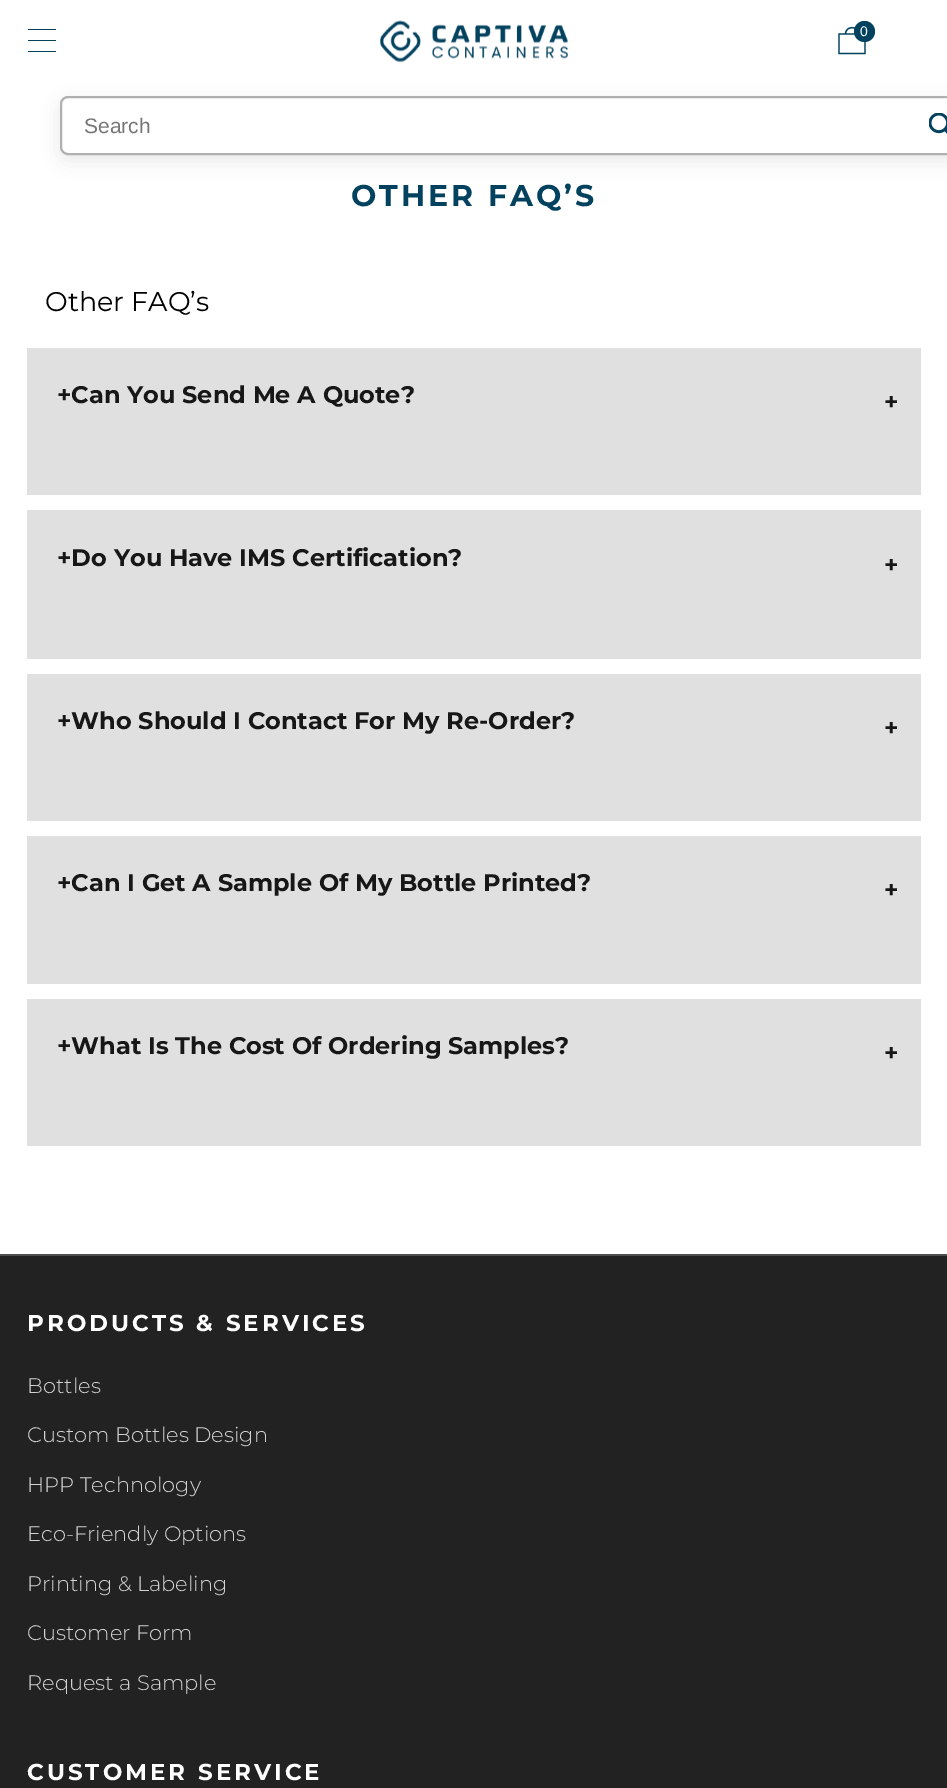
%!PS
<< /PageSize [947 1788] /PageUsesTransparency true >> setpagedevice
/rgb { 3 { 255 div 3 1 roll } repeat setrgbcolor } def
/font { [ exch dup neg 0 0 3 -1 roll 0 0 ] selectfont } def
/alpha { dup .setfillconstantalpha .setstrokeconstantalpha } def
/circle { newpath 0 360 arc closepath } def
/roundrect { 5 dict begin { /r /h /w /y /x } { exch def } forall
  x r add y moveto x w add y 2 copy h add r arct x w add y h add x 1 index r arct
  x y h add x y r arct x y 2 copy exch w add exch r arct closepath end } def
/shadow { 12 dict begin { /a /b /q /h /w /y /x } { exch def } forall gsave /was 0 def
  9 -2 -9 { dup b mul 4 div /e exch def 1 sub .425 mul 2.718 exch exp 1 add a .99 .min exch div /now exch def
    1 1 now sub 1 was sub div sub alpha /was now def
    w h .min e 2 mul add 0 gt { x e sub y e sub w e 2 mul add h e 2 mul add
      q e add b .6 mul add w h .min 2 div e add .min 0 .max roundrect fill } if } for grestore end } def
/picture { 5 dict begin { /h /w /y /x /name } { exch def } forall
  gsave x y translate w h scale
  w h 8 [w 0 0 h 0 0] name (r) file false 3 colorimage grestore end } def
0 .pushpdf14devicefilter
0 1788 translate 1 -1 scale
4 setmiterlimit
255 255 255 rgb
0 0 947 1788 rectfill
[
  [28 29 28 1 3 66 95]
  [28 40 28 1 3 66 95]
  [28 51 28 1 3 66 95]
] { aload pop rgb rectfill } forall
(img/1.rgb) 380 20 189 43 picture
1.3 setlinewidth
839 34 moveto 865 34 lineto 865 53.5 lineto 839 53.5 lineto closepath 858.5 34 moveto 858.5 25.5 845.5 25.5 845.5 34 curveto stroke
864.5 31.5 10.5 circle fill
0 0 0 rgb
60 102 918 59 8 9 0.08 shadow
255 255 255 rgb
61 97 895 57 7 roundrect gsave fill grestore
176 176 176 rgb
2 setlinewidth
stroke
(img/2.rgb) 929 113 18 21 picture
[
  [27 348 894 147 224 224 224]
  [27 510 894 149 224 224 224]
  [27 674 894 147 224 224 224]
  [27 836 894 148 224 224 224]
  [27 999 894 147 224 224 224]
  [0 1256 947 532 34 34 34]
  [0 1254 947 2 78 78 78]
] { aload pop rgb rectfill } forall
/LiberationSans-Regular 14 font
255 255 255 rgb
860 36 moveto (0) show
/LiberationSans-Regular 21 font
117 117 117 rgb
84 133 moveto (Search) show
/Montserrat-Bold 30 font
3 66 95 rgb
351 206 moveto 3 0 (OTHER FAQ’S) ashow
/Montserrat-Regular 27 font
0 0 0 rgb
45 311 moveto (Other FAQ’s) show
/Montserrat-Bold 24 font
23 23 23 rgb
[
  [(+Can You Send Me A Quote?) 57 403]
  [(+) 884 410]
  [(+Do You Have IMS Certification?) 57 566]
  [(+) 884 573]
  [(+Who Should I Contact For My Re-Order?) 57 729]
  [(+) 884 736]
  [(+Can I Get A Sample Of My Bottle Printed?) 57 891]
  [(+) 884 898]
  [(+What Is The Cost Of Ordering Samples?) 57 1054]
  [(+) 884 1061]
] { aload pop moveto show } forall
/Montserrat-Bold 23 font
255 255 255 rgb
27 1331 moveto 3 0 (PRODUCTS & SERVICES) ashow
/Montserrat-Light 21 font
211 211 211 rgb
[
  [(Bottles) 27 1393]
  [(Custom Bottles Design) 27 1442]
  [(HPP Technology) 27 1492]
  [(Eco-Friendly Options) 27 1541]
  [(Printing & Labeling) 27 1591]
  [(Customer Form) 27 1640]
  [(Request a Sample) 27 1690]
] { aload pop moveto show } forall
/Montserrat-Bold 23 font
255 255 255 rgb
27 1780 moveto 3 0 (CUSTOMER SERVICE) ashow
.poppdf14devicefilter showpage
